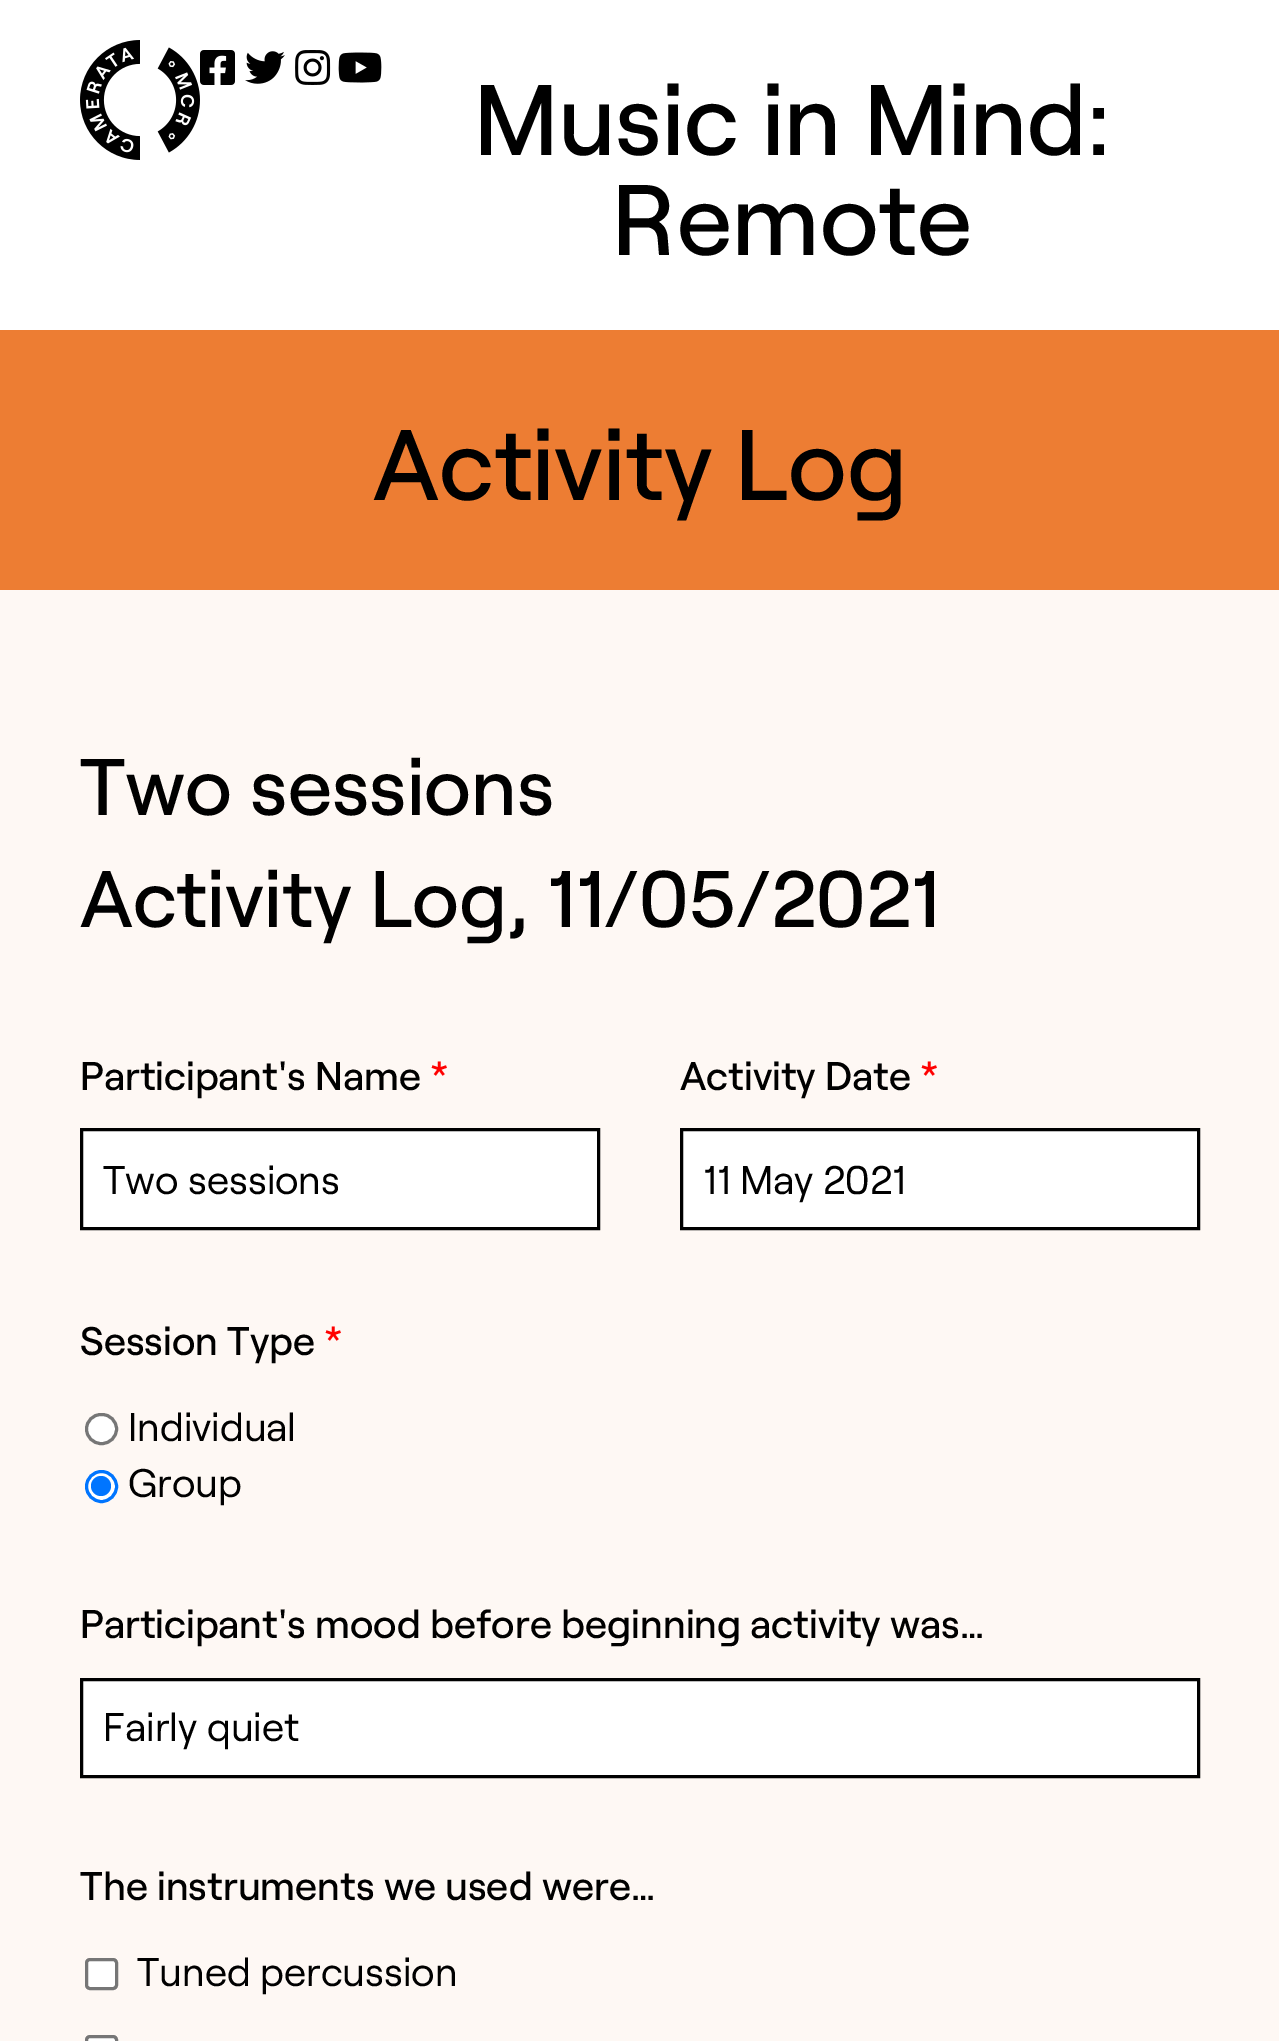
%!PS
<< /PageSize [1279 2041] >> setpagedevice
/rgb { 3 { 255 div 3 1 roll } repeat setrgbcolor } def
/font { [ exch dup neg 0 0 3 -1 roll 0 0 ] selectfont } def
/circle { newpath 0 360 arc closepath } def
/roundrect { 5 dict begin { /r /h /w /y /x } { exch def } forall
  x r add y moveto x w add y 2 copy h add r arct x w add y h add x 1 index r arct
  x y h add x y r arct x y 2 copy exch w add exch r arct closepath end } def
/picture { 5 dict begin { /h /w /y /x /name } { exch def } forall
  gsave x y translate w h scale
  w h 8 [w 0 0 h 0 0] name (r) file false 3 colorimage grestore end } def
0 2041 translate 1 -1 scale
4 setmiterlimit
255 255 255 rgb
0 0 1279 2041 rectfill
(img/1.rgb) 80 40 120 120 picture
(img/2.rgb) 200 50 35 35 picture
(img/3.rgb) 245 51 40 33 picture
(img/4.rgb) 295 50 36 35 picture
(img/5.rgb) 338 52 44 31 picture
237 125 51 rgb
0 330 1279 260 rectfill
254 248 244 rgb
0 590 1279 1451 rectfill
255 255 255 rgb
81.5 1129.5 moveto 598.5 1129.5 lineto 598.5 1228.5 lineto 81.5 1228.5 lineto closepath gsave fill grestore
0 0 0 rgb
3 setlinewidth
stroke
255 255 255 rgb
681.5 1129.5 moveto 1198.5 1129.5 lineto 1198.5 1228.5 lineto 681.5 1228.5 lineto closepath gsave fill grestore
0 0 0 rgb
stroke
255 255 255 rgb
86.5 1414.5 30 29 14.5 roundrect gsave fill grestore
118 118 118 rgb
stroke
255 255 255 rgb
101.5 1486.5 15 circle gsave fill grestore
0 117 255 rgb
stroke
101 1486 10 circle fill
255 255 255 rgb
81.5 1679.5 moveto 1198.5 1679.5 lineto 1198.5 1776.5 lineto 81.5 1776.5 lineto closepath gsave fill grestore
0 0 0 rgb
stroke
255 255 255 rgb
86.5 1959.5 30 29 3.5 roundrect gsave fill grestore
118 118 118 rgb
stroke
255 255 255 rgb
86.5 2036.5 30 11 3.5 roundrect gsave fill grestore
118 118 118 rgb
stroke
/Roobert-Medium 100 font
0 0 0 rgb
[
  [(Music in Mind:) 474 155]
  [(Remote) 612 255]
  [(Activity Log) 373 500]
] { aload pop moveto show } forall
/Roobert-Medium 80 font
80 815 moveto (Two sessions) show
80 927 moveto (Activity Log, 11/05/2021) show
/Roobert-Medium 40 font
80 1090 moveto (Participant's Name) show
255 0 0 rgb
430 1090 moveto (*) show
/Roobert-Regular 40 font
0 0 0 rgb
103 1194 moveto (Two sessions) show
/Roobert-Medium 40 font
680 1090 moveto (Activity Date) show
255 0 0 rgb
920 1090 moveto (*) show
/Roobert-Regular 40 font
0 0 0 rgb
703 1194 moveto (11 May 2021) show
/Roobert-Medium 40 font
80 1355 moveto (Session Type) show
255 0 0 rgb
324 1355 moveto (*) show
/Roobert-Regular 40 font
0 0 0 rgb
128 1441 moveto (Individual) show
128 1497 moveto (Group) show
/Roobert-Medium 40 font
80 1638 moveto (Participant's mood before beginning activity was…) show
/Roobert-Regular 40 font
103 1741 moveto (Fairly quiet) show
/Roobert-Medium 40 font
80 1900 moveto (The instruments we used were…) show
/Roobert-Regular 40 font
137 1986 moveto (Tuned percussion) show
showpage
